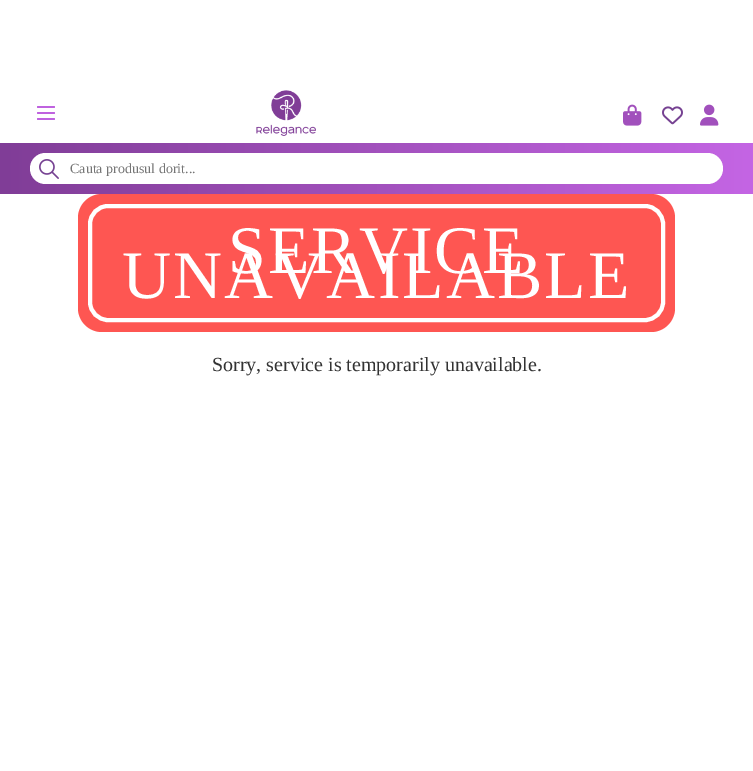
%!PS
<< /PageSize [753 771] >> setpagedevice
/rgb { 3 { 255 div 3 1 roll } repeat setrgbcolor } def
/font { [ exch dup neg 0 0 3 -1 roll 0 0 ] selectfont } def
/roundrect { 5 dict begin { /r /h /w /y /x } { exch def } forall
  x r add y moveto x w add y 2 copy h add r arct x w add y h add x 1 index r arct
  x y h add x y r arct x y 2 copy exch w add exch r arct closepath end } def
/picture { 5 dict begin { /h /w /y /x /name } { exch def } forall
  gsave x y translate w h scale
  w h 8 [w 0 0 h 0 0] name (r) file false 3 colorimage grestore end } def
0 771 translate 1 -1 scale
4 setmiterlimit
255 255 255 rgb
0 0 753 771 rectfill
191 98 223 rgb
37 106 18 2 1 roundrect fill
37 112 18 2 1 roundrect fill
37 118 18 2 1 roundrect fill
(img/1.rgb) 256 90 60 46 picture
(img/2.rgb) 623 104 19 22 picture
(img/3.rgb) 662 106 21 19 picture
(img/4.rgb) 700 104 19 22 picture
gsave 0 143 moveto 753 143 lineto 753 194 lineto 0 194 lineto closepath clip newpath
<< /ShadingType 2 /ColorSpace /DeviceRGB /Coords [0 169 753 168] /Extend [true true] /Function << /FunctionType 2 /Domain [0 1] /C0 [0.502 0.239 0.592] /C1 [0.769 0.396 0.894] /N 1 >> >> shfill grestore
255 255 255 rgb
30 153 693 31 15.5 roundrect fill
(img/5.rgb) 39 159 20 20 picture
254 86 82 rgb
78 194 597 138 24 roundrect fill
255 255 255 rgb
4 setlinewidth
90 206 573 114 18 roundrect stroke
/LiberationSerif-Regular 14 font
117 117 117 rgb
70 173 moveto (Cauta produsul dorit...) show
/LiberationSerif-Regular 68 font
255 255 255 rgb
228 273 moveto 2 0 (SERVICE) ashow
122 298 moveto 2 0 (UNAVAILABLE) ashow
/LiberationSerif-Regular 20 font
51 51 51 rgb
212 371 moveto (Sorry, service is temporarily unavailable.) show
showpage
